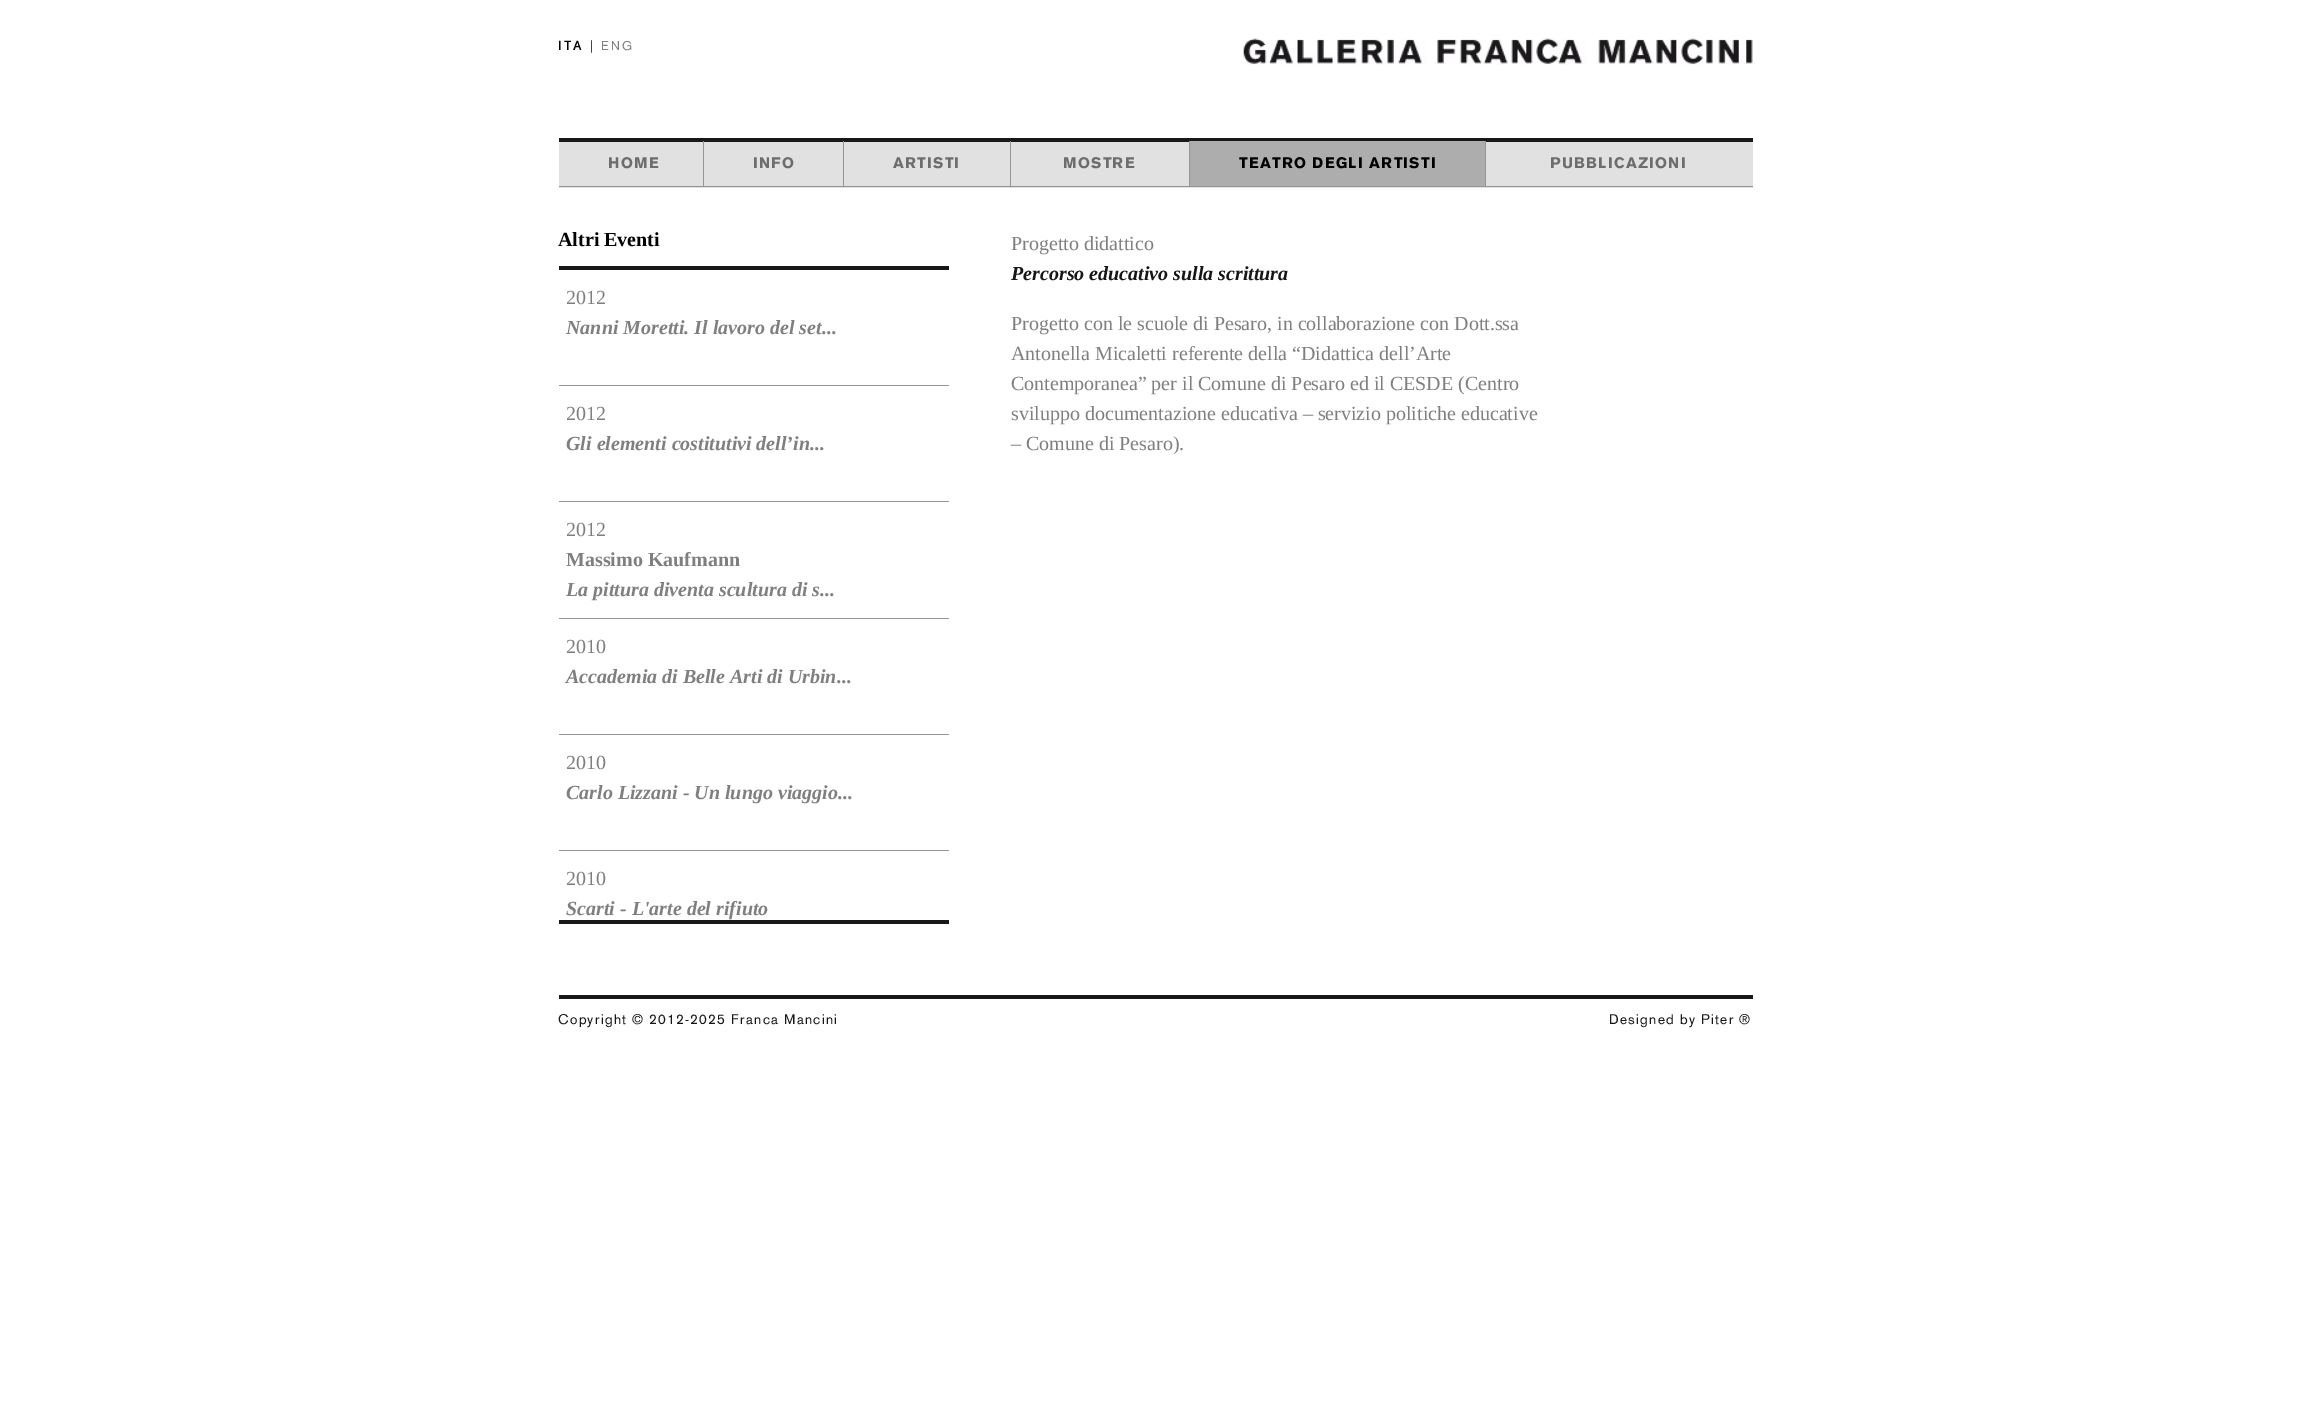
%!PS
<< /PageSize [2309 1406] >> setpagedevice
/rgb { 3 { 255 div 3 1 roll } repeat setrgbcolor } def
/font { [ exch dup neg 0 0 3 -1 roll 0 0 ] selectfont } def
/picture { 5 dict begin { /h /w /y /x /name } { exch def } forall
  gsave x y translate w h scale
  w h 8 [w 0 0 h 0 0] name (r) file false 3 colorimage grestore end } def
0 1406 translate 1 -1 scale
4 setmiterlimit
255 255 255 rgb
0 0 2309 1406 rectfill
(img/1.rgb) 1243 38 510 27 picture
[
  [559 142 1194 46 225 225 225]
  [559 138 1194 4 26 23 27]
  [559 186 1194 1 150 149 150]
  [703 141 1 45 150 149 150]
  [843 141 1 45 150 149 150]
  [1010 141 1 45 150 149 150]
  [1190 141 295 45 173 173 173]
  [1189 141 1 45 150 149 150]
  [1485 141 1 45 150 149 150]
  [559 266 390 4 26 23 27]
  [559 920 390 4 26 23 27]
  [559 385 390 1 149 149 149]
  [559 501 390 1 149 149 149]
  [559 618 390 1 149 149 149]
  [559 734 390 1 149 149 149]
  [559 850 390 1 149 149 149]
  [559 995 1194 4 26 23 27]
] { aload pop rgb rectfill } forall
/AkzidenzGrotesk-Bold 12.5 font
0 0 0 rgb
558 50 moveto 2.5 0 (ITA) ashow
/AkzidenzGrotesk-Regular 12.5 font
590 50 moveto 2.5 0 (|) ashow
127 127 127 rgb
601 50 moveto 2.5 0 (ENG) ashow
/AkzidenzGrotesk-Black 15 font
108 109 109 rgb
608 168 moveto 1.25 0 (HOME) ashow
753 168 moveto 1.25 0 (INFO) ashow
893 168 moveto 1.25 0 (ARTISTI) ashow
1063 168 moveto 1.25 0 (MOSTRE) ashow
0 0 0 rgb
1239 168 moveto 1.25 0 (TEATRO DEGLI ARTISTI) ashow
108 109 109 rgb
1550 168 moveto 1.25 0 (PUBBLICAZIONI) ashow
/LiberationSerif-Bold 20 font
0 0 0 rgb
558 246 moveto (Altri Eventi) show
/LiberationSerif-Regular 20 font
127 127 127 rgb
566 304 moveto (2012) show
/LiberationSerif-BoldItalic 20 font
566 334 moveto (Nanni Moretti. Il lavoro del set...) show
/LiberationSerif-Regular 20 font
566 420 moveto (2012) show
/LiberationSerif-BoldItalic 20 font
566 450 moveto (Gli elementi costitutivi dell’in...) show
/LiberationSerif-Regular 20 font
566 536 moveto (2012) show
/LiberationSerif-Bold 20 font
566 566 moveto (Massimo Kaufmann) show
/LiberationSerif-BoldItalic 20 font
566 596 moveto (La pittura diventa scultura di s...) show
/LiberationSerif-Regular 20 font
566 653 moveto (2010) show
/LiberationSerif-BoldItalic 20 font
566 683 moveto (Accademia di Belle Arti di Urbin...) show
/LiberationSerif-Regular 20 font
566 769 moveto (2010) show
/LiberationSerif-BoldItalic 20 font
566 799 moveto (Carlo Lizzani - Un lungo viaggio...) show
/LiberationSerif-Regular 20 font
566 885 moveto (2010) show
/LiberationSerif-BoldItalic 20 font
566 915 moveto (Scarti - L'arte del rifiuto) show
/LiberationSerif-Regular 20 font
1011 250 moveto (Progetto didattico) show
/LiberationSerif-BoldItalic 20 font
23 21 24 rgb
1011 280 moveto (Percorso educativo sulla scrittura) show
/LiberationSerif-Regular 20 font
127 127 127 rgb
[
  [(Progetto con le scuole di Pesaro, in collaborazione con Dott.ssa) 1011 330]
  [(Antonella Micaletti referente della “Didattica dell’Arte) 1011 360]
  [(Contemporanea” per il Comune di Pesaro ed il CESDE \(Centro) 1011 390]
  [(sviluppo documentazione educativa – servizio politiche educative) 1011 420]
  [(– Comune di Pesaro\).) 1011 450]
] { aload pop moveto show } forall
/AkzidenzGrotesk-Regular 13.75 font
23 21 24 rgb
558 1024 moveto 1.25 0 (Copyright © 2012-2025 Franca Mancini) ashow
1609 1024 moveto 1.25 0 (Designed by Piter ®) ashow
showpage
